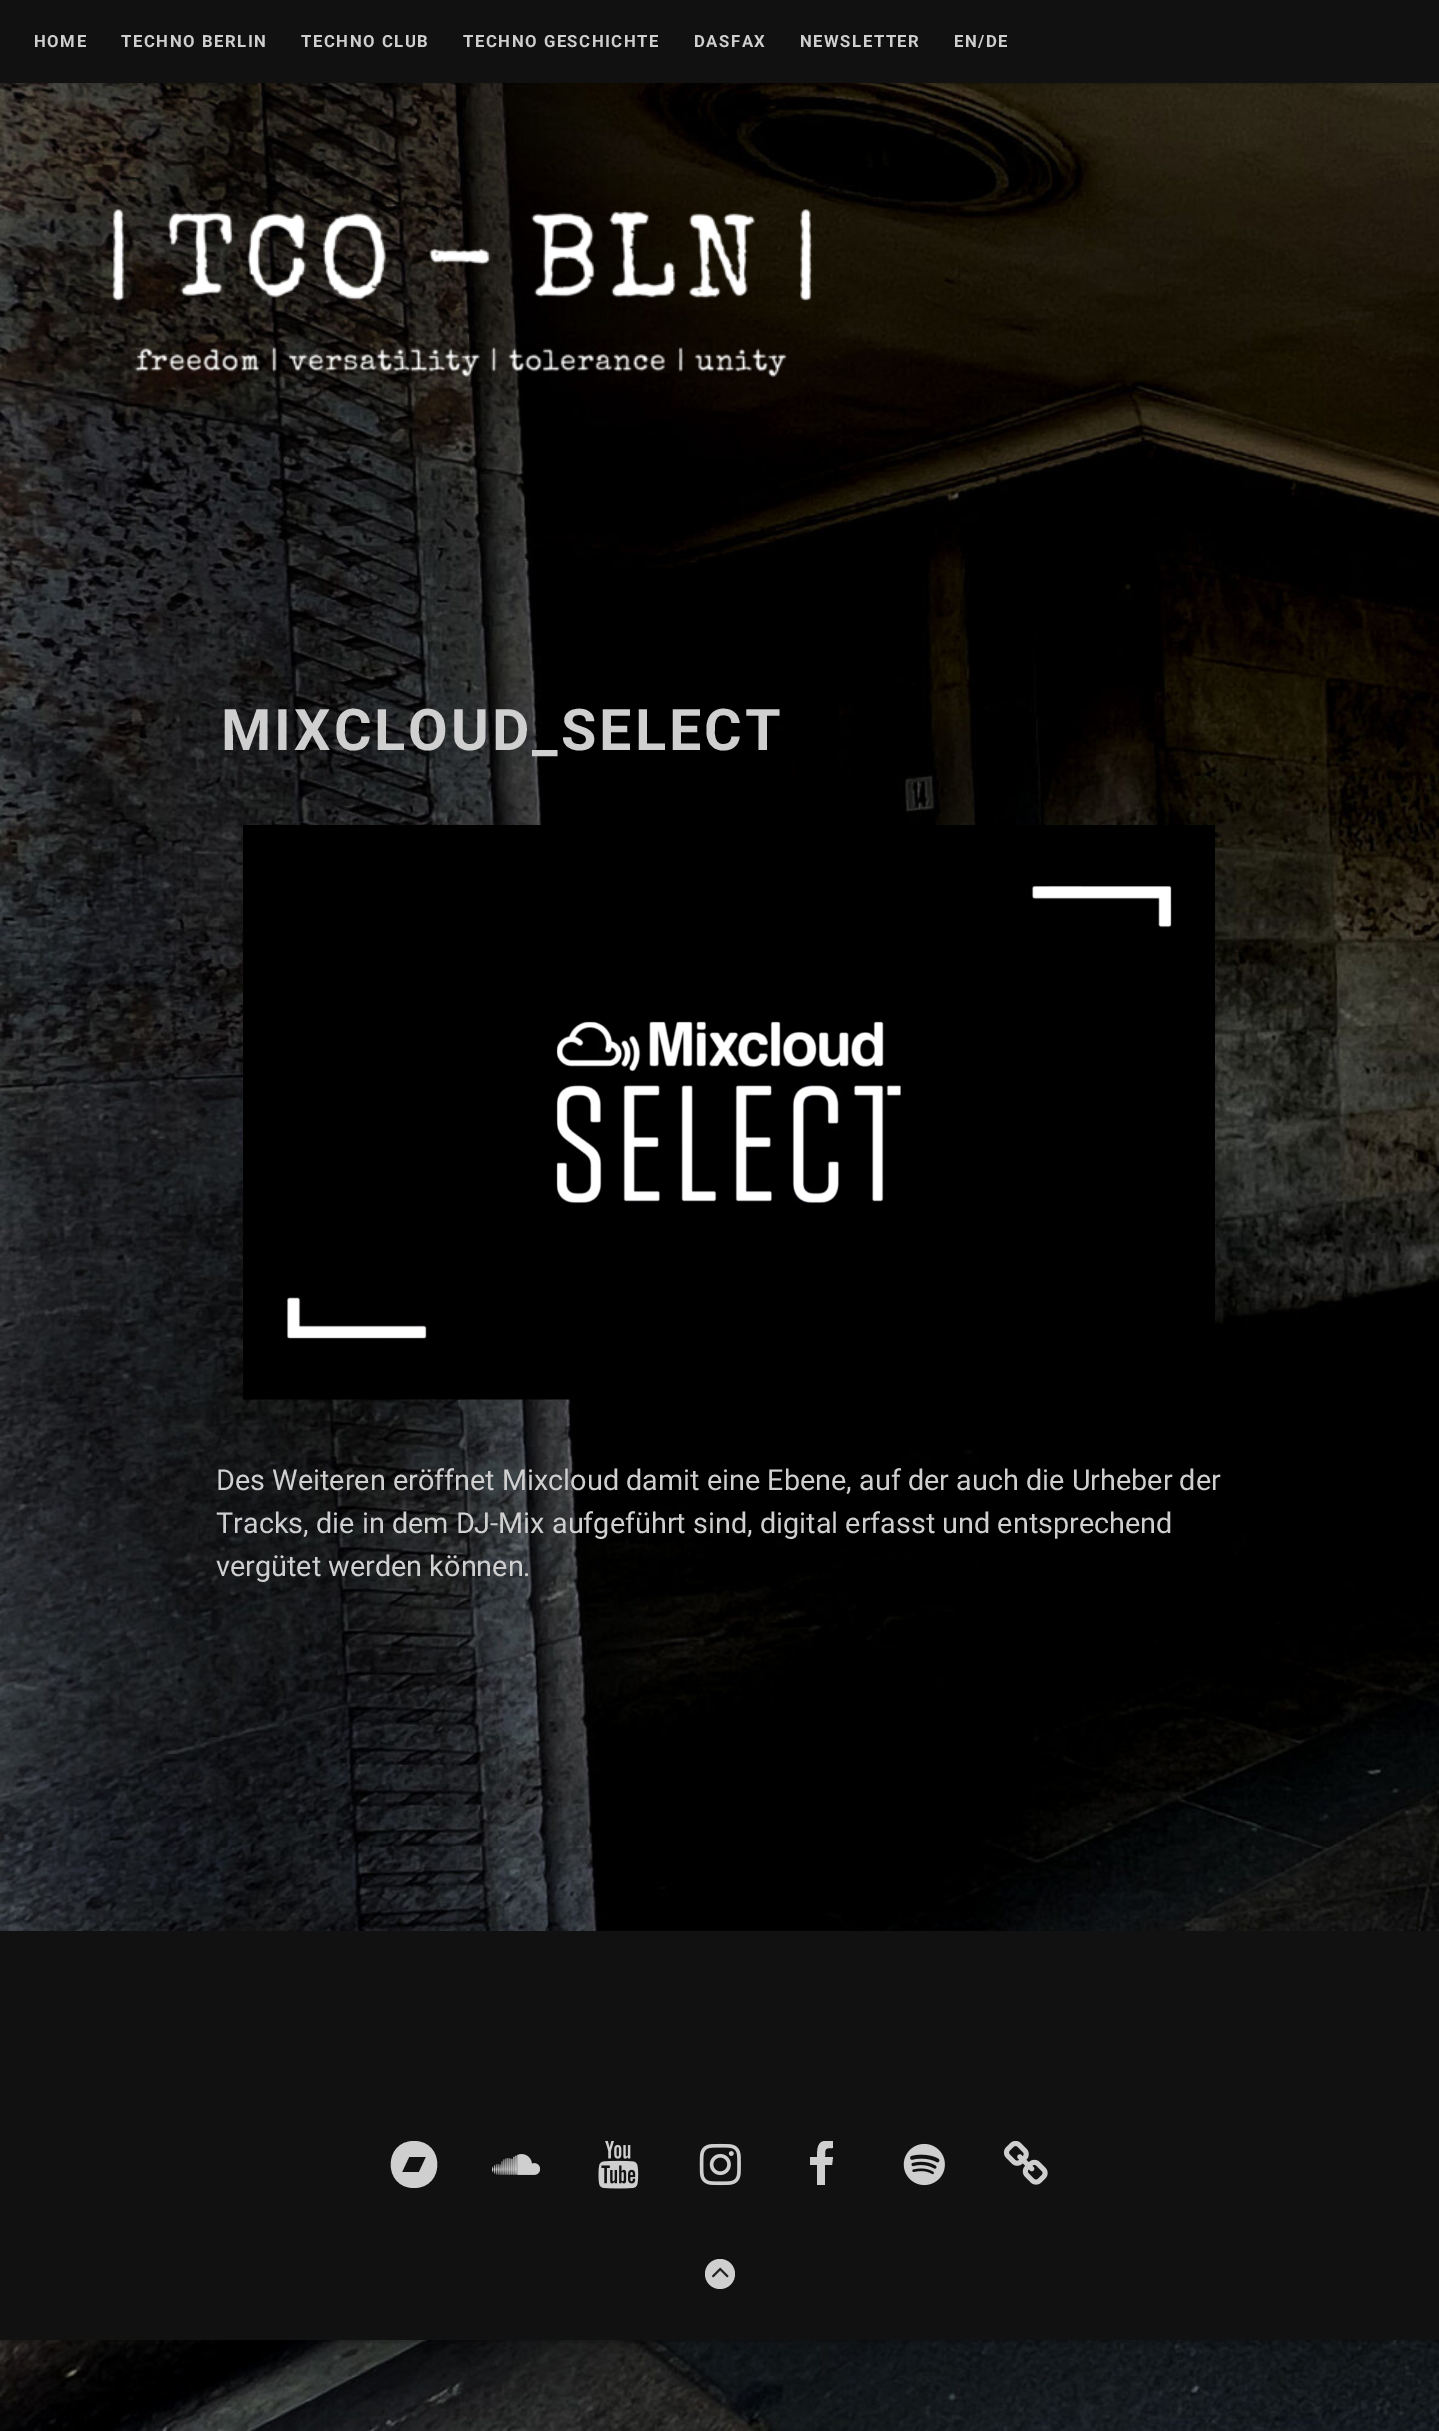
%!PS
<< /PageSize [1439 2431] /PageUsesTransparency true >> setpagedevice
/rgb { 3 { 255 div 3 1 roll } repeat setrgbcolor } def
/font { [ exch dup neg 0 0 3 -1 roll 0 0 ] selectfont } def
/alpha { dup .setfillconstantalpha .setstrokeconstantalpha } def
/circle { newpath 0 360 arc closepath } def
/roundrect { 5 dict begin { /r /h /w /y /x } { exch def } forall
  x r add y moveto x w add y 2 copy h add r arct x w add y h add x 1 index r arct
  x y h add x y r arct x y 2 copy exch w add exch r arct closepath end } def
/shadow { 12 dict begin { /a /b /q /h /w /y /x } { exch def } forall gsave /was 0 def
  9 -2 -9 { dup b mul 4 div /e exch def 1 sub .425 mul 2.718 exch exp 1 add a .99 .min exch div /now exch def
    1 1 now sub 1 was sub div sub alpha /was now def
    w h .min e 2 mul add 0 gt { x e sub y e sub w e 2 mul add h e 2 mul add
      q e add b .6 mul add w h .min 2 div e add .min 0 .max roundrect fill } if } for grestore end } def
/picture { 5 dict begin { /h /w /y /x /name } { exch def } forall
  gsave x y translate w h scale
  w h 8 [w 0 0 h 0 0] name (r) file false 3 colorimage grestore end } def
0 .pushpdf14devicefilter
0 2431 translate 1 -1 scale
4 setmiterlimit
255 255 255 rgb
0 0 1439 2431 rectfill
(img/1.rgb) 0 83 1439 2348 picture
0 0 0 rgb
0 2 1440 82 0 1.5 0.2 shadow
17 17 17 rgb
0 0 1439 83 rectfill
(img/2.rgb) 112 209 701 169 picture
(img/3.rgb) 243 825 972 575 picture
0 0 0 rgb
0 1932 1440 410 0 1.5 0.2 shadow
17 17 17 rgb
0 1931 1439 409 rectfill
207 207 207 rgb
414 2141 moveto 383 2141 383 2188 414 2188 curveto 445 2188 445 2141 414 2141 curveto closepath 419 2172 moveto 402 2172 lineto 409 2157 lineto 426 2157 lineto closepath fill
(img/4.rgb) 492 2154 48 21 picture
(img/5.rgb) 598 2141 41 48 picture
(img/6.rgb) 699 2143 42 43 picture
gsave
798 2141 48 48 rectclip
833 2141 moveto 833 2148 lineto 825 2148 825 2148 825 2157 curveto 833 2157 lineto 832 2165 lineto 825 2165 lineto 825 2185 lineto 817 2185 lineto 817 2165 lineto 810 2165 lineto 810 2157 lineto 817 2157 lineto 817 2144 819 2139 833 2141 curveto closepath fill
grestore
(img/7.rgb) 903 2143 42 43 picture
(img/8.rgb) 1003 2141 45 44 picture
720 2274 15 circle fill
(img/9.rgb) 711 2267 18 11 picture
/Roboto-Bold 16.75 font
34 47 moveto 1.5 0 (HOME) ashow
121 47 moveto 1.5 0 (TECHNO BERLIN) ashow
301 47 moveto 1.5 0 (TECHNO CLUB) ashow
463 47 moveto 1.5 0 (TECHNO GESCHICHTE) ashow
694 47 moveto 1.5 0 (DASFAX) ashow
800 47 moveto 1.5 0 (NEWSLETTER) ashow
954 47 moveto 1.5 0 (EN/DE) ashow
/Roboto-Bold 57.5 font
221 750 moveto 3 0 (MIXCLOUD_SELECT) ashow
/Roboto-Regular 28.8 font
[
  [(Des Weiteren eröffnet Mixcloud damit eine Ebene, auf der auch die Urheber der) 216 1490]
  [(Tracks, die in dem DJ-Mix aufgeführt sind, digital erfasst und entsprechend) 216 1533]
  [(vergütet werden können.) 216 1576]
] { aload pop moveto show } forall
.poppdf14devicefilter showpage
